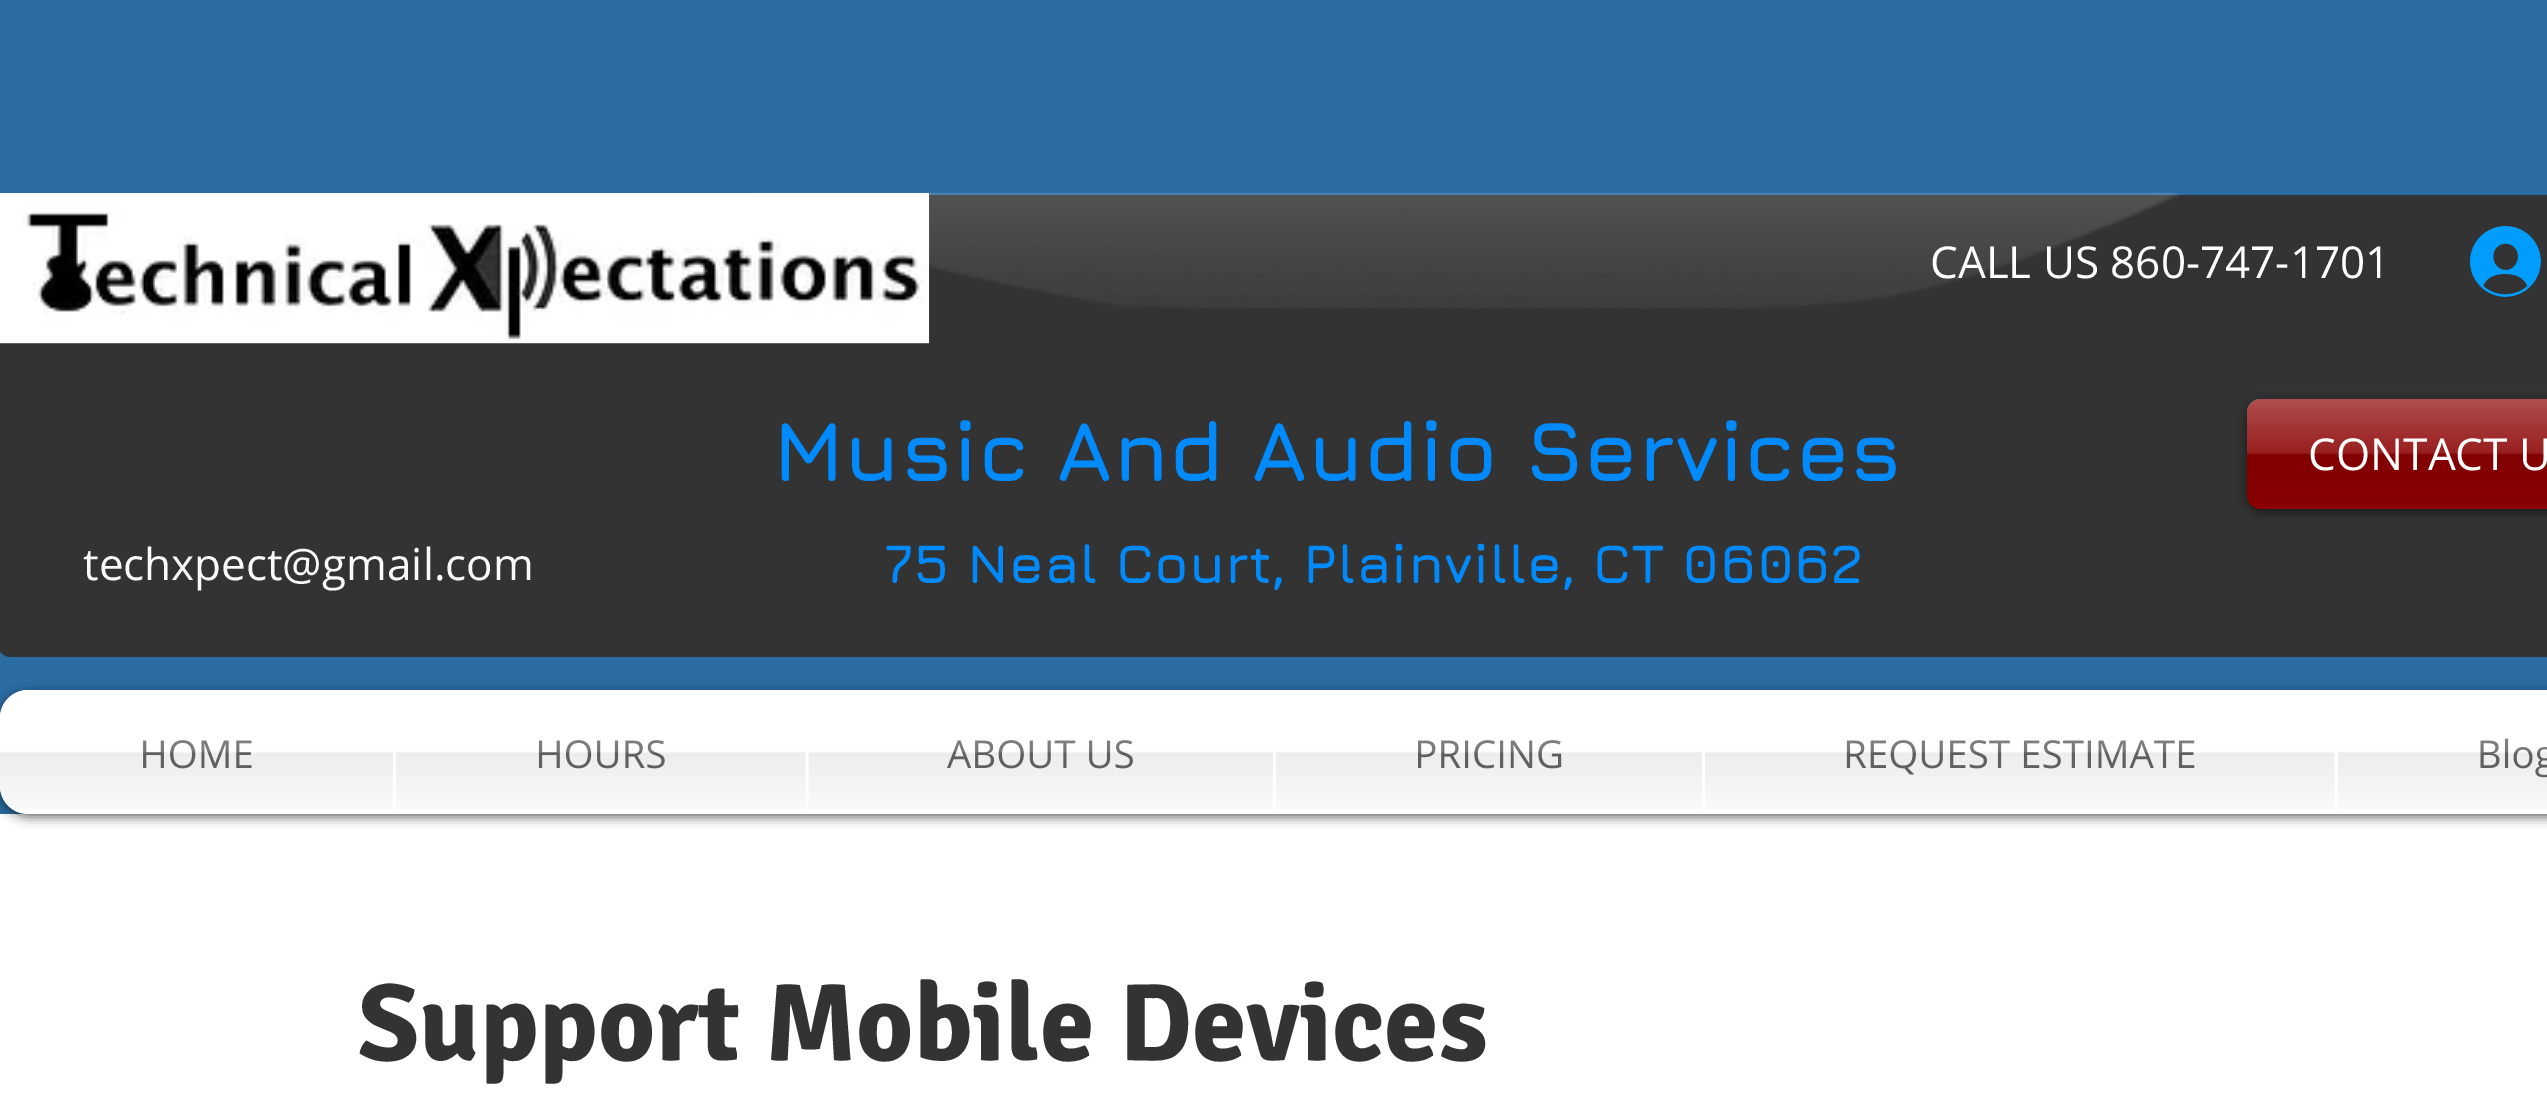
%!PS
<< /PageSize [2547 1102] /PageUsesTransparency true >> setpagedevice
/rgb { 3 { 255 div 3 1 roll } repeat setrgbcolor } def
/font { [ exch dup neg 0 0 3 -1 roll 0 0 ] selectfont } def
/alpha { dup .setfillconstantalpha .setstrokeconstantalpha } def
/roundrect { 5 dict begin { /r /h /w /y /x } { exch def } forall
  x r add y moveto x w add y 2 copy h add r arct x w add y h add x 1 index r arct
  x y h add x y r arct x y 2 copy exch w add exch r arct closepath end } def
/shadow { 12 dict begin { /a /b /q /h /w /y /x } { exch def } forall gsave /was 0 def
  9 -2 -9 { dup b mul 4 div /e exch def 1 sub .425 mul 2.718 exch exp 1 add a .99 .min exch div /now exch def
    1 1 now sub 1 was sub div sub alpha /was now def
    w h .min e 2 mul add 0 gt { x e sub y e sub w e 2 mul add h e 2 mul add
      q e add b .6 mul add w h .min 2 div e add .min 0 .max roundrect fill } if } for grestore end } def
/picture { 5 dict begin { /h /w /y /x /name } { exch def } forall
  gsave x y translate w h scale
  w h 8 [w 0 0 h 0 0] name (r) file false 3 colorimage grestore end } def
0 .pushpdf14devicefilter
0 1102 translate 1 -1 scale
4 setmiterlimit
255 255 255 rgb
0 0 2547 1102 rectfill
43 108 163 rgb
0 0 2547 814 rectfill
51 51 51 rgb
-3 195 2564 462 14 roundrect fill
(img/2.rgb) 754 192 1425 117 picture
(img/1.rgb) 0 193 930 151 picture
(img/3.rgb) 2470 226 71 71 picture
0 0 0 rgb
2247 402 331 110 14 5.5 0.6 shadow
139 0 0 rgb
2247 399 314 110 14 roundrect fill
(img/4.rgb) 2247 399 300 103 picture
0 0 0 rgb
0 693 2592 124 28 5.5 0.6 shadow
(img/5.rgb) 0 690 28 116 picture
255 255 255 rgb
28 690 moveto 393 690 lineto 393 814 lineto 28 814 lineto 12.5 814 0 801.5 0 786 curveto 0 718 lineto 0 702.5 12.5 690 28 690 curveto closepath fill
393 690 2154 124 rectfill
/OpenSans-Regular 44 font
1930 278 moveto (CALL US 860-747-1701) show
/Jura-Bold 85.25 font
0 138 252 rgb
773 481 moveto (Music And Audio Services) show
/Jura-Bold 55 font
884 583 moveto (75 Neal Court, Plainville, CT 06062) show
/OpenSans-Regular 44 font
255 255 255 rgb
2308 470 moveto (CONTACT U) show
249 249 249 rgb
83 580 moveto (techxpect@gmail.com) show
/OpenSans-Regular 38.5 font
102 102 102 rgb
139 768 moveto (HOME) show
(img/6.rgb) 0 690 393 119 picture
535 768 moveto (HOURS) show
(img/7.rgb) 396 740 410 69 picture
947 768 moveto (ABOUT US) show
(img/8.rgb) 808 740 465 69 picture
1414 768 moveto (PRICING) show
(img/9.rgb) 1276 740 426 69 picture
1843 768 moveto (REQUEST ESTIMATE) show
(img/10.rgb) 1705 740 630 69 picture
2477 768 moveto (Blog) show
(img/11.rgb) 2338 738 209 71 picture
/Signika-Bold 110 font
51 51 51 rgb
358 1060 moveto (Support Mobile Devices) show
.poppdf14devicefilter showpage
